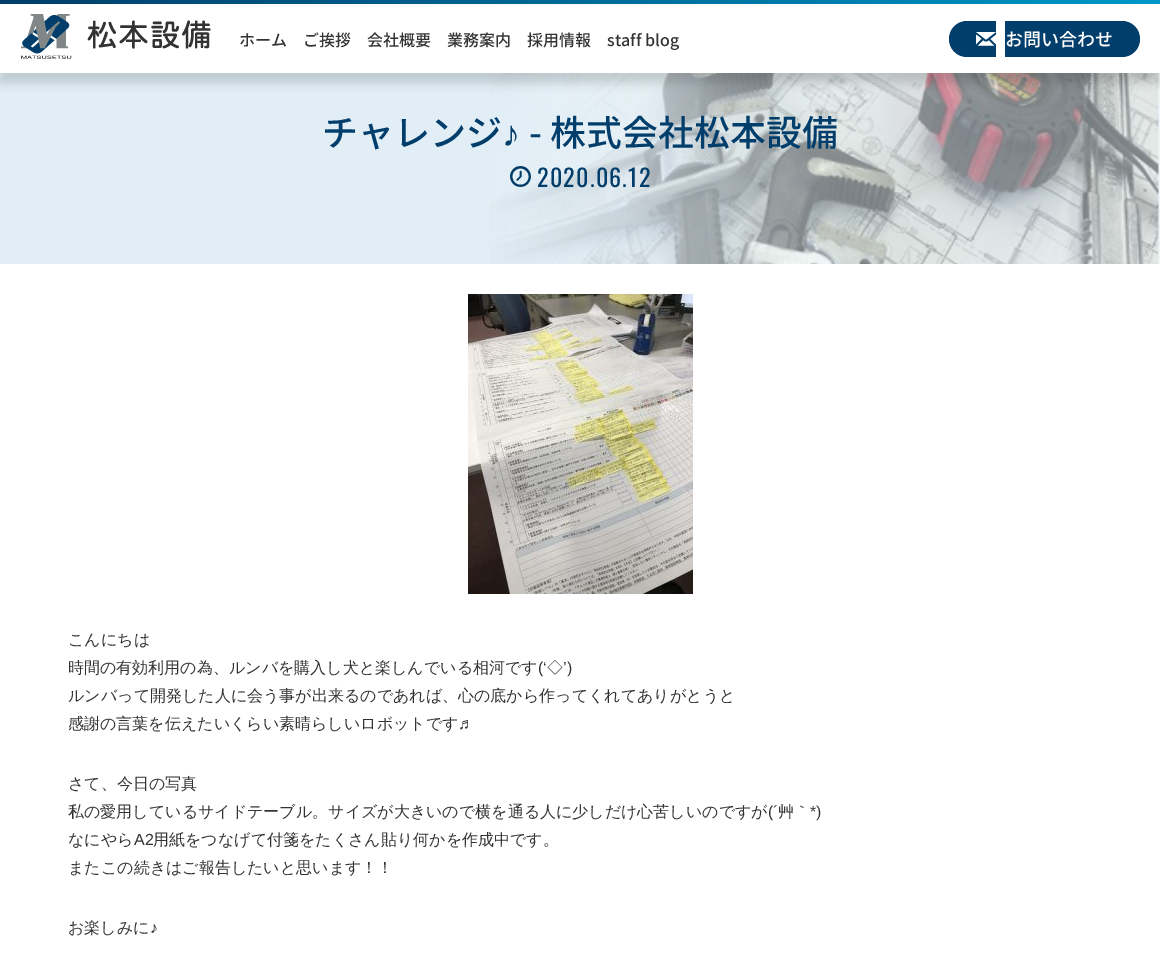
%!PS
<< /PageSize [1160 957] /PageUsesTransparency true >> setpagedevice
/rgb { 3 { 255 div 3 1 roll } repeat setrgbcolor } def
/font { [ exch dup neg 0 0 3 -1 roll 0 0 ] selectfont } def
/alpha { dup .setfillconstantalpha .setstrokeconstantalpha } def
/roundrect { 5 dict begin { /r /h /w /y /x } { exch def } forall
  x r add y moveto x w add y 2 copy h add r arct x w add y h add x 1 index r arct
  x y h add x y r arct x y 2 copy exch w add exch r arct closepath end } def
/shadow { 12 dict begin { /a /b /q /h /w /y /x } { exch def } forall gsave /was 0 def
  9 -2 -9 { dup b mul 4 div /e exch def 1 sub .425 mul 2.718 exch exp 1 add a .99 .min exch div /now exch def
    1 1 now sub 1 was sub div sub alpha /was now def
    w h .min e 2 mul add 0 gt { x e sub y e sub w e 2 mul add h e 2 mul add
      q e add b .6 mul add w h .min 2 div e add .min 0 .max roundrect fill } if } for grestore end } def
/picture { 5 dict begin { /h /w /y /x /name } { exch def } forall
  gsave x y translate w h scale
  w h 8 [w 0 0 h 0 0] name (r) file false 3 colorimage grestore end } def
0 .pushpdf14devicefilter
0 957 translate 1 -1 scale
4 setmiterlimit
255 255 255 rgb
0 0 1160 957 rectfill
226 238 246 rgb
0 73 813 191 rectfill
(img/3.rgb) 489 73 671 191 picture
0 0 0 rgb
0 10 1160 73 0 5 0.15 shadow
255 255 255 rgb
0 4 1160 69 rectfill
gsave 0 0 moveto 1160 0 lineto 1160 4 lineto 0 4 lineto closepath clip newpath
<< /ShadingType 2 /ColorSpace /DeviceRGB /Coords [0 2 1160 2] /Extend [true true] /Function << /FunctionType 2 /Domain [0 1] /C0 [0.004 0.243 0.42] /C1 [0 0.596 0.78] /N 1 >> >> shfill grestore
(img/1.rgb) 20 14 191 45 picture
1 62 107 rgb
967 21 moveto 996 21 lineto 996 57 lineto 967 57 lineto 957 57 949 49 949 39 curveto 949 29 957 21 967 21 curveto closepath fill
(img/2.rgb) 976 32 20 14 picture
1005 21 moveto 1122 21 lineto 1132 21 1140 29 1140 39 curveto 1140 49 1132 57 1122 57 curveto 1005 57 lineto closepath fill
(img/4.rgb) 510 166 21 21 picture
(img/5.rgb) 468 294 225 300 picture
/NotoSansJP-Medium 16 font
51 51 51 rgb
[
  [(ホーム) 239 46]
  [(ご挨拶) 303 46]
  [(会社概要) 367 46]
  [(業務案内) 447 46]
  [(採用情報) 527 46]
  [(staff blog) 607 46]
] { aload pop moveto show } forall
/NotoSansJP-Medium 18 font
255 255 255 rgb
1005 46 moveto (お問い合わせ) show
/NotoSansJP-Medium 36 font
1 62 107 rgb
322 146 moveto (チャレンジ) show
/LiberationSerif-Regular 36 font
502 146 moveto (♪) show
/NotoSansJP-Medium 36 font
529 146 moveto (- 株式会社松本設備) show
/Oswald-Regular 24 font
537 187 moveto 1.25 0 (2020.06.12) ashow
/WenQuanYiZenHei-Medium 16 font
51 51 51 rgb
68 645 moveto (こんにちは) show
68 673 moveto (時間の有効利用の為、ルンバを購入し犬と楽しんでいる相河です) show
/LiberationSans-Regular 16 font
538 673 moveto (\(‘) show
/WenQuanYiZenHei-Medium 16 font
547 673 moveto (◇) show
/LiberationSans-Regular 16 font
563 673 moveto (’\)) show
/WenQuanYiZenHei-Medium 16 font
68 701 moveto (ルンバって開発した人に会う事が出来るのであれば、心の底から作ってくれてありがとうと) show
68 729 moveto (感謝の言葉を伝えたいくらい素晴らしいロボットです) show
/LiberationSans-Regular 16 font
458 729 moveto (♬) show
/WenQuanYiZenHei-Medium 16 font
68 789 moveto (さて、今日の写真) show
68 817 moveto (私の愛用しているサイドテーブル。サイズが大きいので横を通る人に少しだけ心苦しいのですが) show
/LiberationSans-Regular 16 font
768 817 moveto (\(´) show
/WenQuanYiZenHei-Medium 16 font
778 817 moveto (艸｀) show
/LiberationSans-Regular 16 font
810 817 moveto (*\)) show
/WenQuanYiZenHei-Medium 16 font
68 845 moveto (なにやら) show
/LiberationSans-Regular 16 font
134 845 moveto (A2) show
/WenQuanYiZenHei-Medium 16 font
[
  [(用紙をつなげて付箋をたくさん貼り何かを作成中です。) 153 845]
  [(またこの続きはご報告したいと思います！！) 68 873]
  [(お楽しみに) 68 933]
] { aload pop moveto show } forall
/LiberationSans-Regular 16 font
150 933 moveto (♪) show
.poppdf14devicefilter showpage
